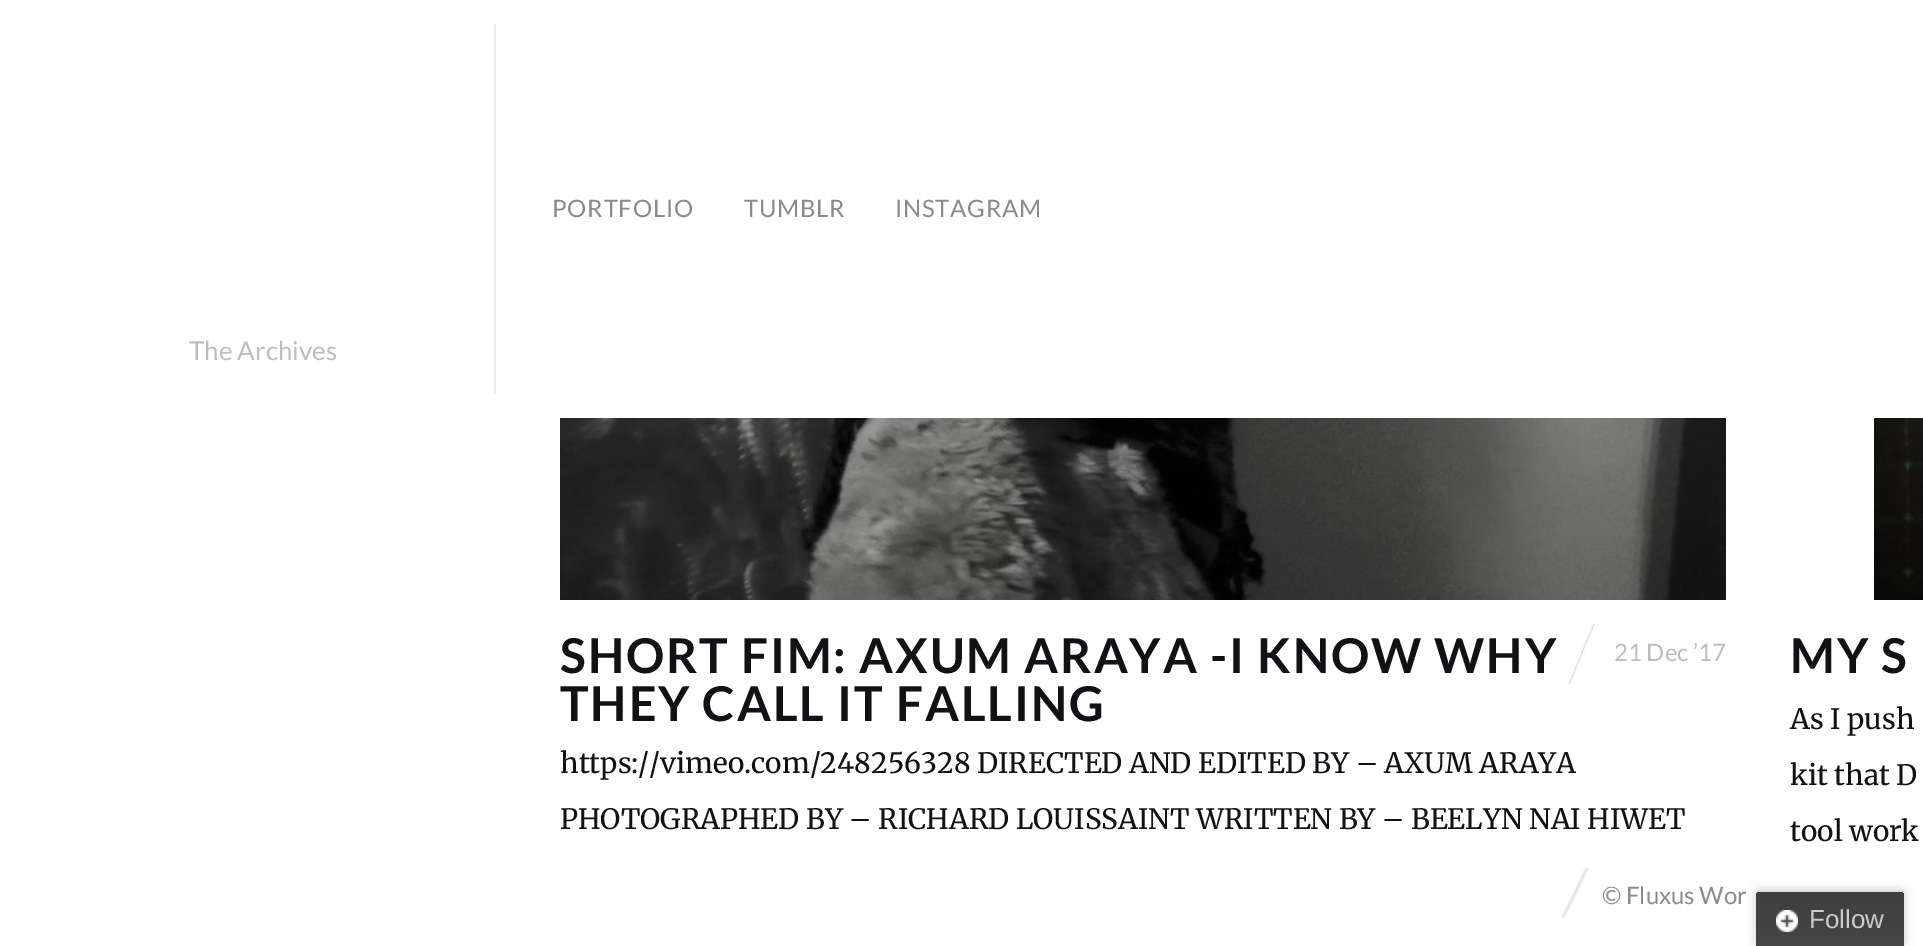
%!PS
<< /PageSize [1923 946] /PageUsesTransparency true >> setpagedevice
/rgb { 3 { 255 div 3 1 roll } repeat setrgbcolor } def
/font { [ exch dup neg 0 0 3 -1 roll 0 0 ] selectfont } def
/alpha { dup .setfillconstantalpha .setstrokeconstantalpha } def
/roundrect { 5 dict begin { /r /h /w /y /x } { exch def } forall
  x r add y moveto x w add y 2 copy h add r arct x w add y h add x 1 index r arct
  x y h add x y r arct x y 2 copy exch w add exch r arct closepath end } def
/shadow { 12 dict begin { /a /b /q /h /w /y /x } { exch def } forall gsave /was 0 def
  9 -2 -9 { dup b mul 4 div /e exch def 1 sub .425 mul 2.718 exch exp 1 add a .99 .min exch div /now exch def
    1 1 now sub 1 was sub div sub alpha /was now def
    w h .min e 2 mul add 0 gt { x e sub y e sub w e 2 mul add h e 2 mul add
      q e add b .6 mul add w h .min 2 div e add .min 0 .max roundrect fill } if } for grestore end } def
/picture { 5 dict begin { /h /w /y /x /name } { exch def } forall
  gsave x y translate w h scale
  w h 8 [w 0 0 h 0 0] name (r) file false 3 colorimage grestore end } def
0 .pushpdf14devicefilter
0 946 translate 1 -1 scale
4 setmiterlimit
255 255 255 rgb
0 0 1923 946 rectfill
235 235 235 rgb
494 24 2 370 rectfill
(img/1.rgb) 560 418 1166 182 picture
(img/2.rgb) 1568 624 27 60 picture
(img/3.rgb) 1874 418 49 182 picture
(img/4.rgb) 1562 867 27 52 picture
0 0 0 rgb
1756 890 148 56 4 5 0.2 shadow
gsave 1760 892 moveto 1900 892 lineto 1902 892 1904 894 1904 896 curveto 1904 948 lineto 1756 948 lineto 1756 896 lineto 1756 894 1758 892 1760 892 curveto closepath clip newpath
<< /ShadingType 2 /ColorSpace /DeviceRGB /Coords [1756 892 1756 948] /Extend [true true] /Function << /FunctionType 2 /Domain [0 1] /C0 [0.247 0.247 0.247] /C1 [0.275 0.275 0.275] /N 1 >> >> shfill grestore
(img/5.rgb) 1776 910 22 22 picture
/Lato-Regular 24 font
138 138 138 rgb
552 217 moveto 0.75 0 (PORTFOLIO) ashow
744 217 moveto 0.75 0 (TUMBLR) ashow
895 217 moveto 0.75 0 (INSTAGRAM) ashow
/Lato-Regular 26 font
189 189 189 rgb
189 360 moveto (The Archives) show
/Lato-Bold 48 font
17 17 22 rgb
560 673 moveto 1.9 0 (SHORT FIM: AXUM ARAYA -I KNOW WHY) ashow
560 721 moveto 1.9 0 (THEY CALL IT FALLING) ashow
/Lato-Regular 24 font
189 189 189 rgb
1614 661 moveto (21 Dec ’17) show
/Merriweather-Light 28 font
17 17 22 rgb
560 773 moveto (https://vimeo.com/248256328 DIRECTED AND EDITED BY – AXUM ARAYA) show
560 829 moveto (PHOTOGRAPHED BY – RICHARD LOUISSAINT WRITTEN BY – BEELYN NAI HIWET) show
/Lato-Bold 48 font
1790 673 moveto 1.9 0 (MY S) ashow
/Merriweather-Light 28 font
[
  [(As I push) 1790 729]
  [(kit that D) 1790 785]
  [(tool work) 1790 841]
] { aload pop moveto show } forall
/Lato-Regular 24 font
138 138 138 rgb
1602 904 moveto (© Fluxus Wor) show
/LiberationSans-Regular 26 font
204 204 204 rgb
1809 928 moveto (Follow) show
.poppdf14devicefilter showpage
